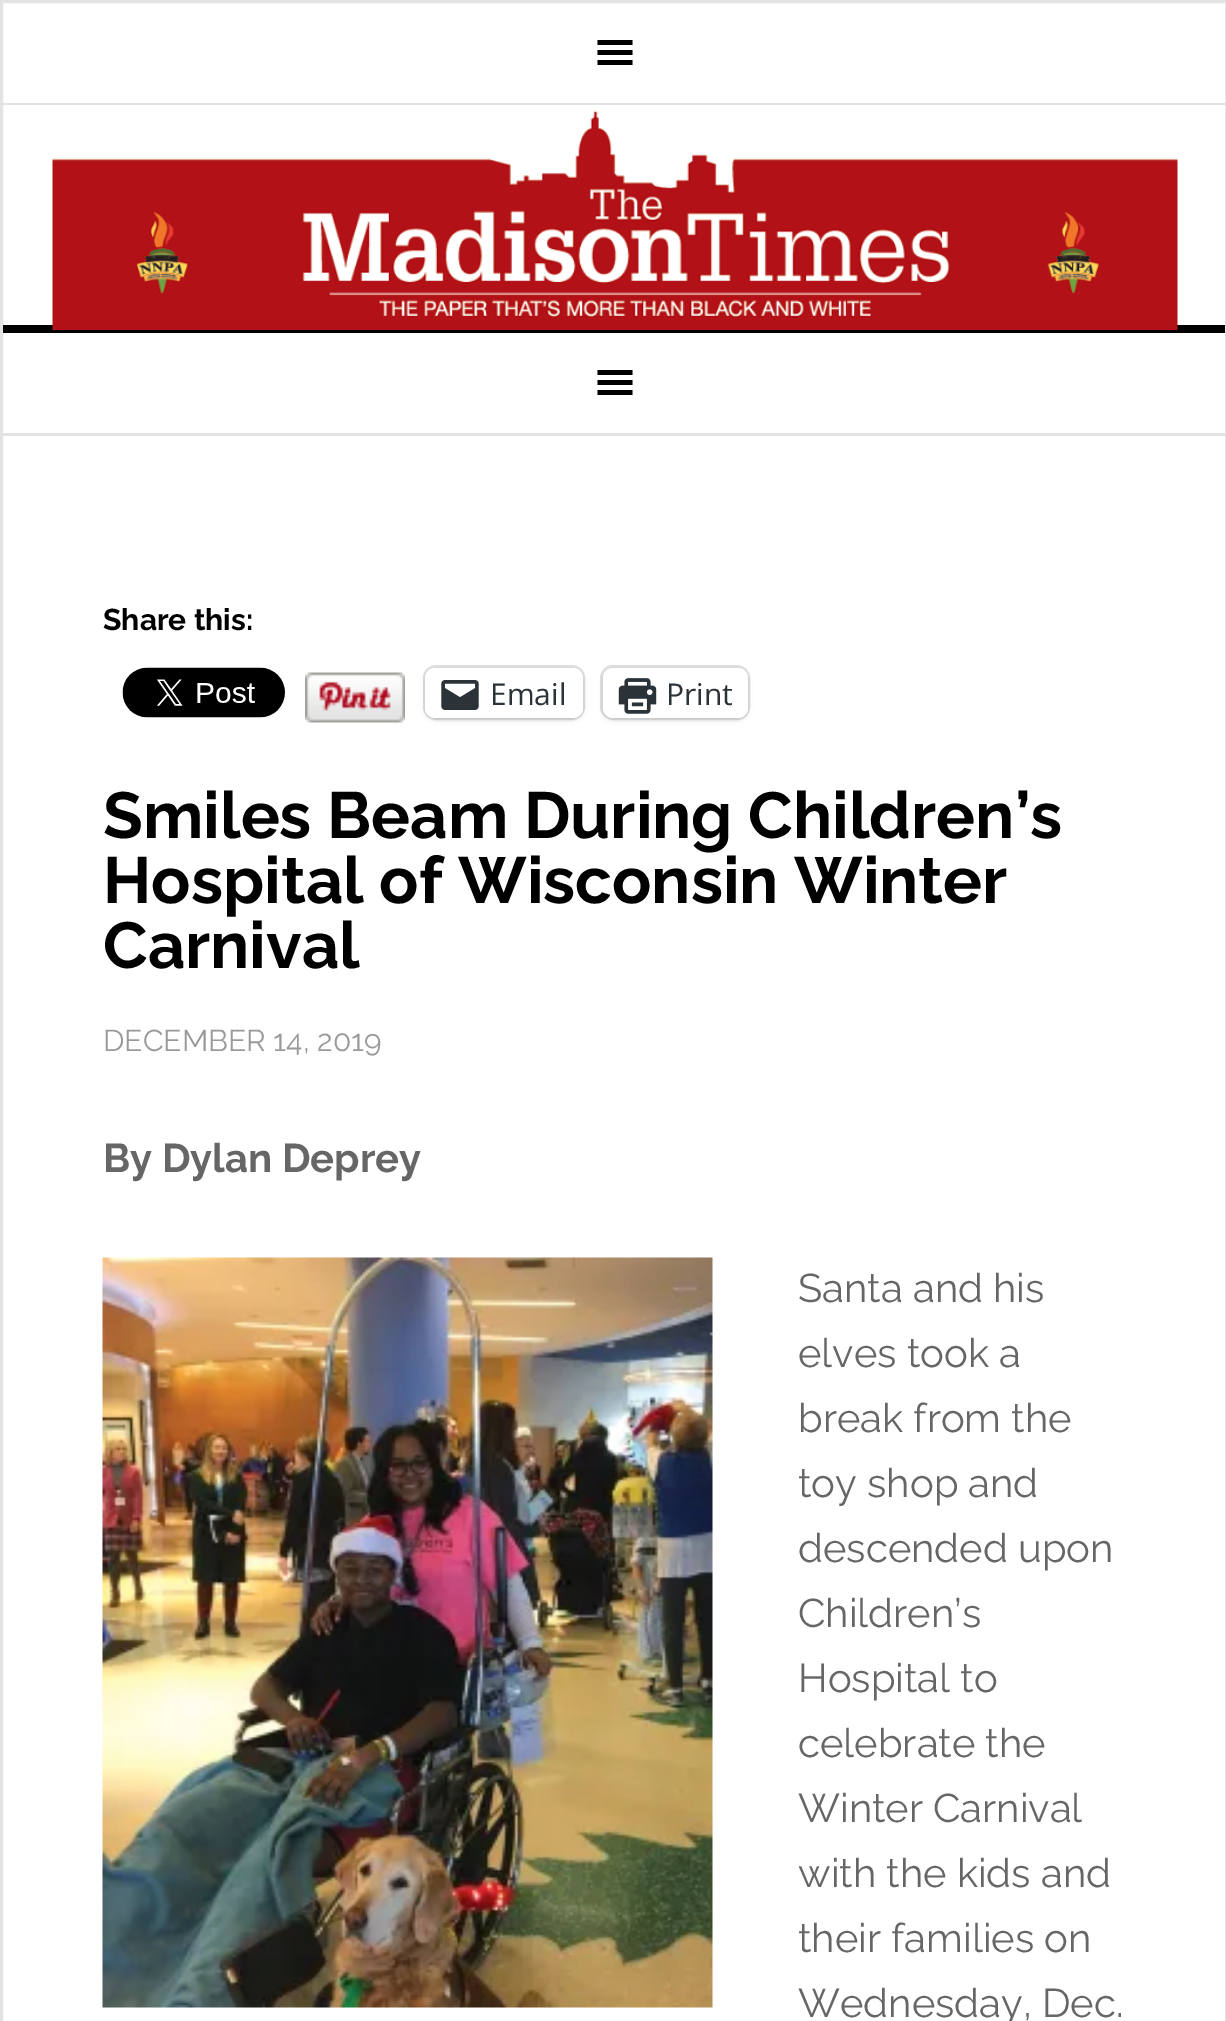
%!PS
<< /PageSize [1226 2021] /PageUsesTransparency true >> setpagedevice
/rgb { 3 { 255 div 3 1 roll } repeat setrgbcolor } def
/font { [ exch dup neg 0 0 3 -1 roll 0 0 ] selectfont } def
/alpha { dup .setfillconstantalpha .setstrokeconstantalpha } def
/roundrect { 5 dict begin { /r /h /w /y /x } { exch def } forall
  x r add y moveto x w add y 2 copy h add r arct x w add y h add x 1 index r arct
  x y h add x y r arct x y 2 copy exch w add exch r arct closepath end } def
/shadow { 12 dict begin { /a /b /q /h /w /y /x } { exch def } forall gsave /was 0 def
  9 -2 -9 { dup b mul 4 div /e exch def 1 sub .425 mul 2.718 exch exp 1 add a .99 .min exch div /now exch def
    1 1 now sub 1 was sub div sub alpha /was now def
    w h .min e 2 mul add 0 gt { x e sub y e sub w e 2 mul add h e 2 mul add
      q e add b .6 mul add w h .min 2 div e add .min 0 .max roundrect fill } if } for grestore end } def
/picture { 5 dict begin { /h /w /y /x /name } { exch def } forall
  gsave x y translate w h scale
  w h 8 [w 0 0 h 0 0] name (r) file false 3 colorimage grestore end } def
0 .pushpdf14devicefilter
0 2021 translate 1 -1 scale
4 setmiterlimit
255 255 255 rgb
0 0 1226 2021 rectfill
227 227 227 rgb
3 setlinewidth
1.5 1.5 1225 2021 rectstroke
3 103 1222 2 rectfill
0 0 0 rgb
597.5 65 moveto 632.5 65 lineto 632.5 60 lineto 597.5 60 lineto closepath 597.5 40 moveto 597.5 45 lineto 632.5 45 lineto 632.5 40 lineto closepath 597.5 55 moveto 632.5 55 lineto 632.5 50 lineto 597.5 50 lineto closepath fill
3 325 1222 8 rectfill
(img/1.rgb) 52 110 1126 220 picture
227 227 227 rgb
3 433 1222 3 rectfill
0 0 0 rgb
597.5 395 moveto 632.5 395 lineto 632.5 390 lineto 597.5 390 lineto closepath 597.5 370 moveto 597.5 375 lineto 632.5 375 lineto 632.5 370 lineto closepath 597.5 385 moveto 632.5 385 lineto 632.5 380 lineto 597.5 380 lineto closepath fill
(img/2.rgb) 122 667 163 51 picture
(img/3.rgb) 305 672 100 51 picture
224 224 224 rgb
424.5 666.5 159 52 11.5 roundrect stroke
0 0 0 rgb
425 670 158 50 10 2.5 0.12 shadow
255 255 255 rgb
425 668 158 50 10 roundrect fill
(img/4.rgb) 441 680 38 30 picture
224 224 224 rgb
601.5 666.5 147 52 11.5 roundrect stroke
0 0 0 rgb
603 670 145 50 10 2.5 0.12 shadow
255 255 255 rgb
603 668 145 50 10 roundrect fill
(img/5.rgb) 618 678 39 36 picture
(img/6.rgb) 102 1257 611 751 picture
/Raleway-Bold 30 font
0 0 0 rgb
103 630 moveto (Share this:) show
/OpenSans-Regular 30 font
44 51 56 rgb
490 705 moveto (Email) show
666 705 moveto (Print) show
/Raleway-Bold 65 font
0 0 0 rgb
[
  [(Smiles Beam During Children’s) 103 838]
  [(Hospital of Wisconsin Winter) 103 903]
  [(Carnival) 103 968]
] { aload pop moveto show } forall
/Raleway-Regular 30 font
153 153 153 rgb
103 1051 moveto (DECEMBER 14, 2019) show
/Raleway-Bold 40 font
102 102 102 rgb
103 1172 moveto (By Dylan Deprey) show
/Raleway-Regular 40 font
[
  [(Santa and his) 798 1302]
  [(elves took a) 798 1367]
  [(break from the) 798 1432]
  [(toy shop and) 798 1497]
  [(descended upon) 798 1562]
  [(Children’s) 798 1627]
  [(Hospital to) 798 1692]
  [(celebrate the) 798 1757]
  [(Winter Carnival) 798 1822]
  [(with the kids and) 798 1887]
  [(their families on) 798 1952]
  [(Wednesday, Dec.) 798 2017]
] { aload pop moveto show } forall
.poppdf14devicefilter showpage
